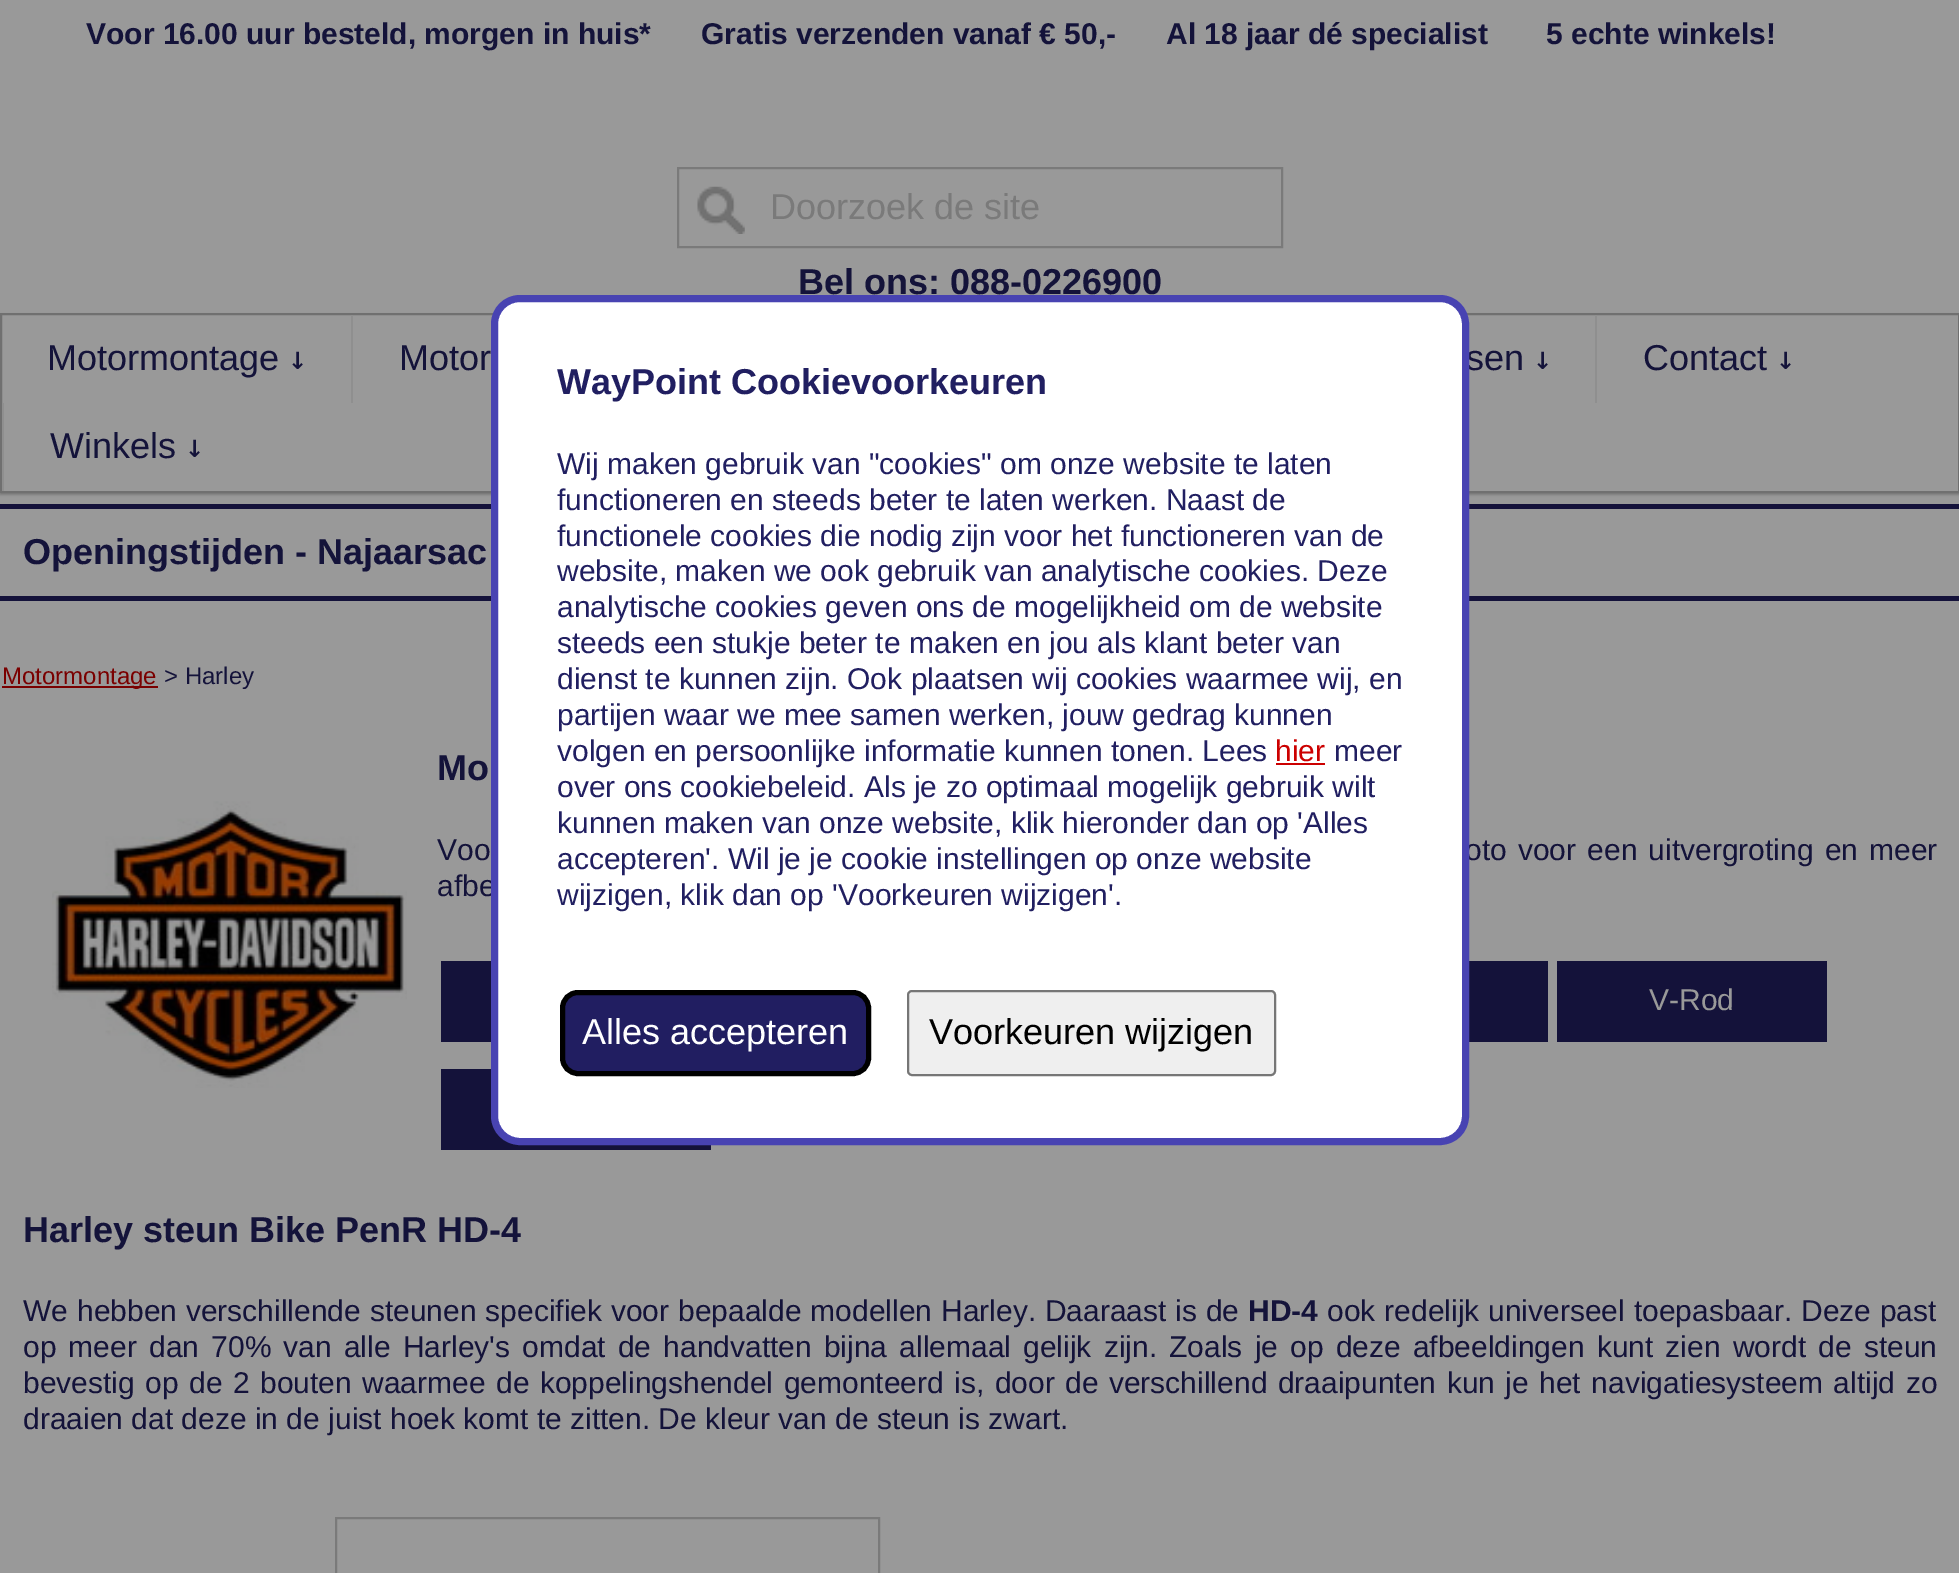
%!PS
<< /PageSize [1959 1573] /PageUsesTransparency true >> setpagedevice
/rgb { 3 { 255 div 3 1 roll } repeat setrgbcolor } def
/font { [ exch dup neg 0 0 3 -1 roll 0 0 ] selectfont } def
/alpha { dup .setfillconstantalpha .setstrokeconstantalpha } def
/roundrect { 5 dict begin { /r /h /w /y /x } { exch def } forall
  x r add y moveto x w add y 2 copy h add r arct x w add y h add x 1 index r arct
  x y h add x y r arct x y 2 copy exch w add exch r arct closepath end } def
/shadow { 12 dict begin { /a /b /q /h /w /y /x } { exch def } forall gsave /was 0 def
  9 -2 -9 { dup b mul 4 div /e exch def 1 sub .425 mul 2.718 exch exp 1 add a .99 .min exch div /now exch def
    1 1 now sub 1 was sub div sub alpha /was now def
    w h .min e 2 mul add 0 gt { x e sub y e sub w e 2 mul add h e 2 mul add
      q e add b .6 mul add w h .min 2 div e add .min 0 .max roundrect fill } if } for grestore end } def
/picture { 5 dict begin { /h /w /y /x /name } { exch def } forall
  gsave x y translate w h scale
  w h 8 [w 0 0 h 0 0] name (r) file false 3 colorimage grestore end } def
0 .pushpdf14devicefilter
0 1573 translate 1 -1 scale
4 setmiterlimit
153 153 153 rgb
0 0 1959 1573 rectfill
(img/1.rgb) 697 186 48 48 picture
122 122 122 rgb
2 setlinewidth
678 168 604 79 rectstroke
0 0 0 rgb
0 315 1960 180 0 1 0.2 shadow
153 153 153 rgb
1 314 moveto 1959 314 lineto 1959 492 lineto 1 492 lineto closepath gsave fill grestore
112 112 112 rgb
stroke
[
  [351 315 2 88 143 143 143]
  [1595 315 2 88 143 143 143]
  [2 403 2 88 143 143 143]
  [0 504 1959 5 20 18 58]
  [0 596 1959 5 20 18 58]
  [2 686 156 2 122 0 0]
] { aload pop rgb rectfill } forall
(img/2.rgb) 52 801 355 287 picture
[
  [441 961 50 81 20 18 58]
  [1469 961 79 81 20 18 58]
  [1557 961 270 81 20 18 58]
  [441 1069 270 81 20 18 58]
] { aload pop rgb rectfill } forall
122 122 122 rgb
336 1518 543 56 rectstroke
/LiberationSans-Bold 30 font
20 19 58 rgb
[
  [(Voor 16.00 uur besteld, morgen in huis*) 86 44]
  [(Gratis verzenden vanaf € 50,-) 701 44]
  [(Al 18 jaar dé specialist) 1166 44]
  [(5 echte winkels!) 1546 44]
] { aload pop moveto show } forall
/LiberationSans-Regular 36 font
122 122 122 rgb
770 219 moveto (Doorzoek de site) show
/LiberationSans-Bold 36 font
20 19 58 rgb
798 294 moveto (Bel ons: 088-0226900) show
/LiberationSans-Regular 36 font
47 370 moveto (Motormontage) show
/DejaVuSansMono-Regular 32 font
288 369 moveto (↓) show
/LiberationSans-Regular 36 font
399 370 moveto (Motor) show
1466 370 moveto (sen) show
/DejaVuSansMono-Regular 32 font
1533 369 moveto (↓) show
/LiberationSans-Regular 36 font
1643 370 moveto (Contact) show
/DejaVuSansMono-Regular 32 font
1776 369 moveto (↓) show
/LiberationSans-Regular 36 font
50 458 moveto (Winkels) show
/DejaVuSansMono-Regular 32 font
185 457 moveto (↓) show
/LiberationSans-Bold 36 font
23 564 moveto (Openingstijden - Najaarsac) show
/LiberationSans-Regular 24 font
122 0 0 rgb
2 684 moveto (Motormontage) show
20 19 58 rgb
164 684 moveto (> Harley) show
/LiberationSans-Bold 36 font
437 780 moveto (Mo) show
/LiberationSans-Regular 30 font
437 860 moveto 2.75 0 32 (Voo) widthshow
1465 860 moveto 2.75 0 32 (oto voor een uitvergroting en meer) widthshow
437 896 moveto (afbe) show
153 153 153 rgb
1649 1010 moveto (V-Rod) show
/LiberationSans-Bold 36 font
20 19 58 rgb
23 1242 moveto (Harley steun Bike PenR HD-4) show
/LiberationSans-Regular 30 font
23 1321 moveto 0.5 0 32 (We hebben verschillende steunen specifiek voor bepaalde modellen Harley. Daaraast is de) widthshow
/LiberationSans-Bold 30 font
1248 1321 moveto (HD-4) show
/LiberationSans-Regular 30 font
1327 1321 moveto 0.5 0 32 (ook redelijk universeel toepasbaar. Deze past) widthshow
23 1357 moveto 3.8 0 32 (op meer dan 70% van alle Harley's omdat de handvatten bijna allemaal gelijk zijn. Zoals je op deze afbeeldingen kunt zien wordt de steun) widthshow
23 1393 moveto 2.1 0 32 (bevestig op de 2 bouten waarmee de koppelingshendel gemonteerd is, door de verschillend draaipunten kun je het navigatiesysteem altijd zo) widthshow
23 1429 moveto (draaien dat deze in de juist hoek komt te zitten. De kleur van de steun is zwart.) show
255 255 255 rgb
494.5 298.5 971 843 25.5 roundrect gsave fill grestore
72 67 178 rgb
7 setlinewidth
stroke
/LiberationSans-Bold 36 font
33 31 97 rgb
557 394 moveto (WayPoint Cookievoorkeuren) show
/LiberationSans-Regular 30 font
[
  [(Wij maken gebruik van "cookies" om onze website te laten) 557 474]
  [(functioneren en steeds beter te laten werken. Naast de) 557 510]
  [(functionele cookies die nodig zijn voor het functioneren van de) 557 546]
  [(website, maken we ook gebruik van analytische cookies. Deze) 557 581]
  [(analytische cookies geven ons de mogelijkheid om de website) 557 617]
  [(steeds een stukje beter te maken en jou als klant beter van) 557 653]
  [(dienst te kunnen zijn. Ook plaatsen wij cookies waarmee wij, en) 557 689]
  [(partijen waar we mee samen werken, jouw gedrag kunnen) 557 725]
  [(volgen en persoonlijke informatie kunnen tonen. Lees) 557 761]
] { aload pop moveto show } forall
204 0 0 rgb
1275 761 moveto (hier) show
1276 763 49 2 rectfill
33 31 97 rgb
[
  [(meer) 1334 761]
  [(over ons cookiebeleid. Als je zo optimaal mogelijk gebruik wilt) 557 797]
  [(kunnen maken van onze website, klik hieronder dan op 'Alles) 557 833]
  [(accepteren'. Wil je je cookie instellingen op onze website) 557 869]
  [(wijzigen, klik dan op 'Voorkeuren wijzigen'.) 557 905]
] { aload pop moveto show } forall
33 30 97 rgb
562.5 992.5 306 81 15.5 roundrect gsave fill grestore
0 0 0 rgb
5 setlinewidth
stroke
/LiberationSans-Regular 36 font
255 255 255 rgb
582 1044 moveto (Alles accepteren) show
239 239 239 rgb
908 991 367 84 4 roundrect gsave fill grestore
118 118 118 rgb
2 setlinewidth
stroke
0 0 0 rgb
929 1044 moveto (Voorkeuren wijzigen) show
.poppdf14devicefilter showpage
